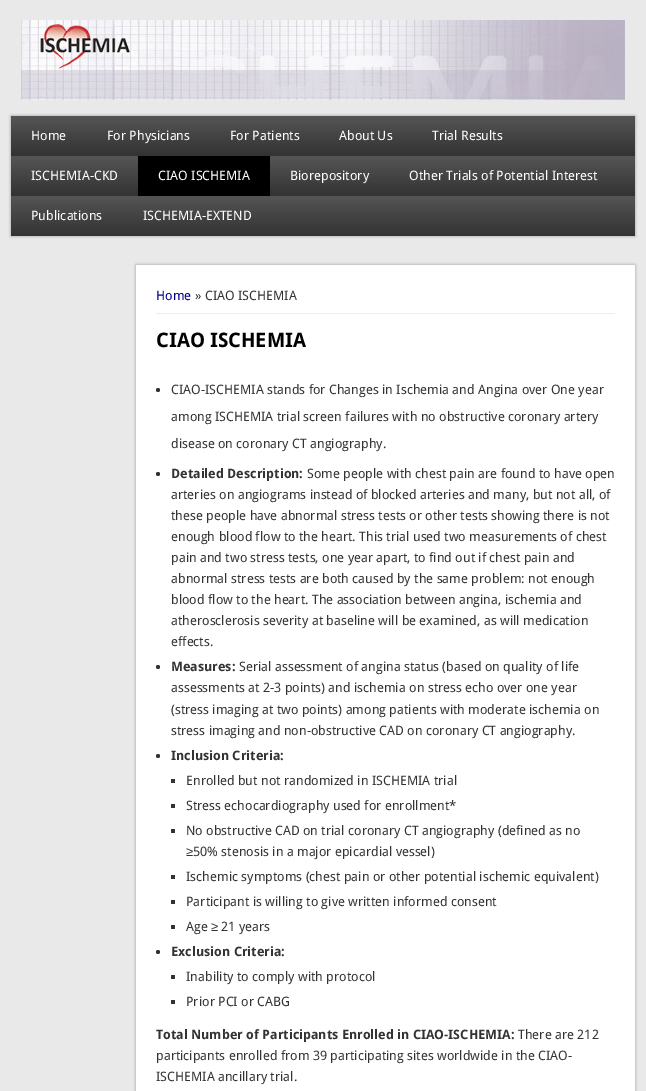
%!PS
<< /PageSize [646 1091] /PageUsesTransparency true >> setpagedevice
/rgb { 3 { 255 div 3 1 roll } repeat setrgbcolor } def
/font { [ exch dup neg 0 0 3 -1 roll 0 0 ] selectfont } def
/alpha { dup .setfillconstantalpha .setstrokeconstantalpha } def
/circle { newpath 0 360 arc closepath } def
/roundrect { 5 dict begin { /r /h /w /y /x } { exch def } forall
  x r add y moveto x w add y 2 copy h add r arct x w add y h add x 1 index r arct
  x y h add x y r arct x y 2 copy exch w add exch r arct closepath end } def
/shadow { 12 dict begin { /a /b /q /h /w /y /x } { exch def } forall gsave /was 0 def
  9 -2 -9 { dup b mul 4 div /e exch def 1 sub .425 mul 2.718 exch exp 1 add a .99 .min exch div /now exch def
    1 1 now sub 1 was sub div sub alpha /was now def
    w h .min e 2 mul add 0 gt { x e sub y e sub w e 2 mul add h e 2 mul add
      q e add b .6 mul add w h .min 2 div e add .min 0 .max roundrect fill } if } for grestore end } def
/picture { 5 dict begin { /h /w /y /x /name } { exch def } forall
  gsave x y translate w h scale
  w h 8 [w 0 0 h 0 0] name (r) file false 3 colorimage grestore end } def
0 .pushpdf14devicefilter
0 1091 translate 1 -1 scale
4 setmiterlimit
233 233 233 rgb
0 0 646 1091 rectfill
(img/1.rgb) 21 20 604 80 picture
153 153 153 rgb
11 116 624 120 0 1.5 1 shadow
gsave 11 116 moveto 635 116 lineto 635 236 lineto 11 236 lineto closepath clip newpath
<< /ShadingType 2 /ColorSpace /DeviceRGB /Coords [323 116 323 276] /Extend [true true] /Function << /FunctionType 3 /Domain [0 1] /Functions [<< /FunctionType 2 /Domain [0 1] /C0 [0.333 0.333 0.333] /C1 [0.2 0.2 0.2] /N 1 >> << /FunctionType 2 /Domain [0 1] /C0 [0.333 0.333 0.333] /C1 [0.2 0.2 0.2] /N 1 >> << /FunctionType 2 /Domain [0 1] /C0 [0.333 0.333 0.333] /C1 [0.2 0.2 0.2] /N 1 >> << /FunctionType 2 /Domain [0 1] /C0 [0.333 0.333 0.333] /C1 [0.2 0.2 0.2] /N 1 >>] /Bounds [0.25 0.5 0.75] /Encode [0 1 0 1 0 1 0 1] >> >> shfill grestore
0 0 0 rgb
138 156 132 40 rectfill
153 153 153 rgb
136 265 499 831 0 1.5 1 shadow
255 255 255 rgb
136 265 499 826 rectfill
238 238 238 rgb
156 313 459 1 rectfill
51 51 51 rgb
158 390 2 circle fill
158 474 2 circle fill
158 667 2 circle fill
158 756 2 circle fill
[
  [171 779 4 4 51 51 51]
  [171 804 4 4 51 51 51]
  [171 829 4 4 51 51 51]
  [171 875 4 4 51 51 51]
  [171 900 4 4 51 51 51]
  [171 925 4 4 51 51 51]
] { aload pop rgb rectfill } forall
158 952 2 circle fill
171 975 4 4 rectfill
171 1000 4 4 rectfill
/DroidSans-Regular 13 font
255 255 255 rgb
[
  [(Home) 31 140]
  [(For Physicians) 107 140]
  [(For Patients) 230 140]
  [(About Us) 339 140]
  [(Trial Results) 432 140]
  [(ISCHEMIA-CKD) 31 180]
  [(CIAO ISCHEMIA) 158 180]
  [(Biorepository) 290 180]
  [(Other Trials of Potential Interest) 409 180]
  [(Publications) 31 220]
  [(ISCHEMIA-EXTEND) 143 220]
] { aload pop moveto show } forall
0 0 139 rgb
156 300 moveto (Home) show
51 51 51 rgb
195 300 moveto (» CIAO ISCHEMIA) show
/DroidSans-Bold 20 font
0 0 0 rgb
156 347 moveto (CIAO ISCHEMIA) show
/DroidSans-Regular 13 font
51 51 51 rgb
[
  [(CIAO-ISCHEMIA stands for Changes in Ischemia and Angina over One year) 171 394]
  [(among ISCHEMIA trial screen failures with no obstructive coronary artery) 171 421]
  [(disease on coronary CT angiography.) 171 448]
] { aload pop moveto show } forall
/DroidSans-Bold 13 font
171 478 moveto (Detailed Description:) show
/DroidSans-Regular 13 font
[
  [(Some people with chest pain are found to have open) 307 478]
  [(arteries on angiograms instead of blocked arteries and many, but not all, of) 171 499]
  [(these people have abnormal stress tests or other tests showing there is not) 171 520]
  [(enough blood flow to the heart. This trial used two measurements of chest) 171 541]
  [(pain and two stress tests, one year apart, to find out if chest pain and) 171 562]
  [(abnormal stress tests are both caused by the same problem: not enough) 171 583]
  [(blood flow to the heart. The association between angina, ischemia and) 171 604]
  [(atherosclerosis severity at baseline will be examined, as will medication) 171 625]
  [(effects.) 171 646]
] { aload pop moveto show } forall
/DroidSans-Bold 13 font
171 671 moveto (Measures:) show
/DroidSans-Regular 13 font
[
  [(Serial assessment of angina status \(based on quality of life) 239 671]
  [(assessments at 2-3 points\) and ischemia on stress echo over one year) 171 692]
  [(\(stress imaging at two points\) among patients with moderate ischemia on) 171 714]
  [(stress imaging and non-obstructive CAD on coronary CT angiography.) 171 735]
] { aload pop moveto show } forall
/DroidSans-Bold 13 font
171 760 moveto (Inclusion Criteria:) show
/DroidSans-Regular 13 font
[
  [(Enrolled but not randomized in ISCHEMIA trial) 186 785]
  [(Stress echocardiography used for enrollment*) 186 810]
  [(No obstructive CAD on trial coronary CT angiography \(defined as no) 186 835]
] { aload pop moveto show } forall
/LiberationSans-Regular 13 font
186 856 moveto (≥) show
/DroidSans-Regular 13 font
[
  [(50% stenosis in a major epicardial vessel\)) 193 856]
  [(Ischemic symptoms \(chest pain or other potential ischemic equivalent\)) 186 881]
  [(Participant is willing to give written informed consent) 186 906]
  [(Age) 186 931]
] { aload pop moveto show } forall
/LiberationSans-Regular 13 font
211 931 moveto (≥) show
/DroidSans-Regular 13 font
221 931 moveto (21 years) show
/DroidSans-Bold 13 font
171 956 moveto (Exclusion Criteria:) show
/DroidSans-Regular 13 font
186 981 moveto (Inability to comply with protocol) show
186 1006 moveto (Prior PCI or CABG) show
/DroidSans-Bold 13 font
156 1039 moveto (Total Number of Participants Enrolled in CIAO-ISCHEMIA:) show
/DroidSans-Regular 13 font
[
  [(There are 212) 518 1039]
  [(participants enrolled from 39 participating sites worldwide in the CIAO-) 156 1060]
  [(ISCHEMIA ancillary trial.) 156 1081]
] { aload pop moveto show } forall
.poppdf14devicefilter showpage
